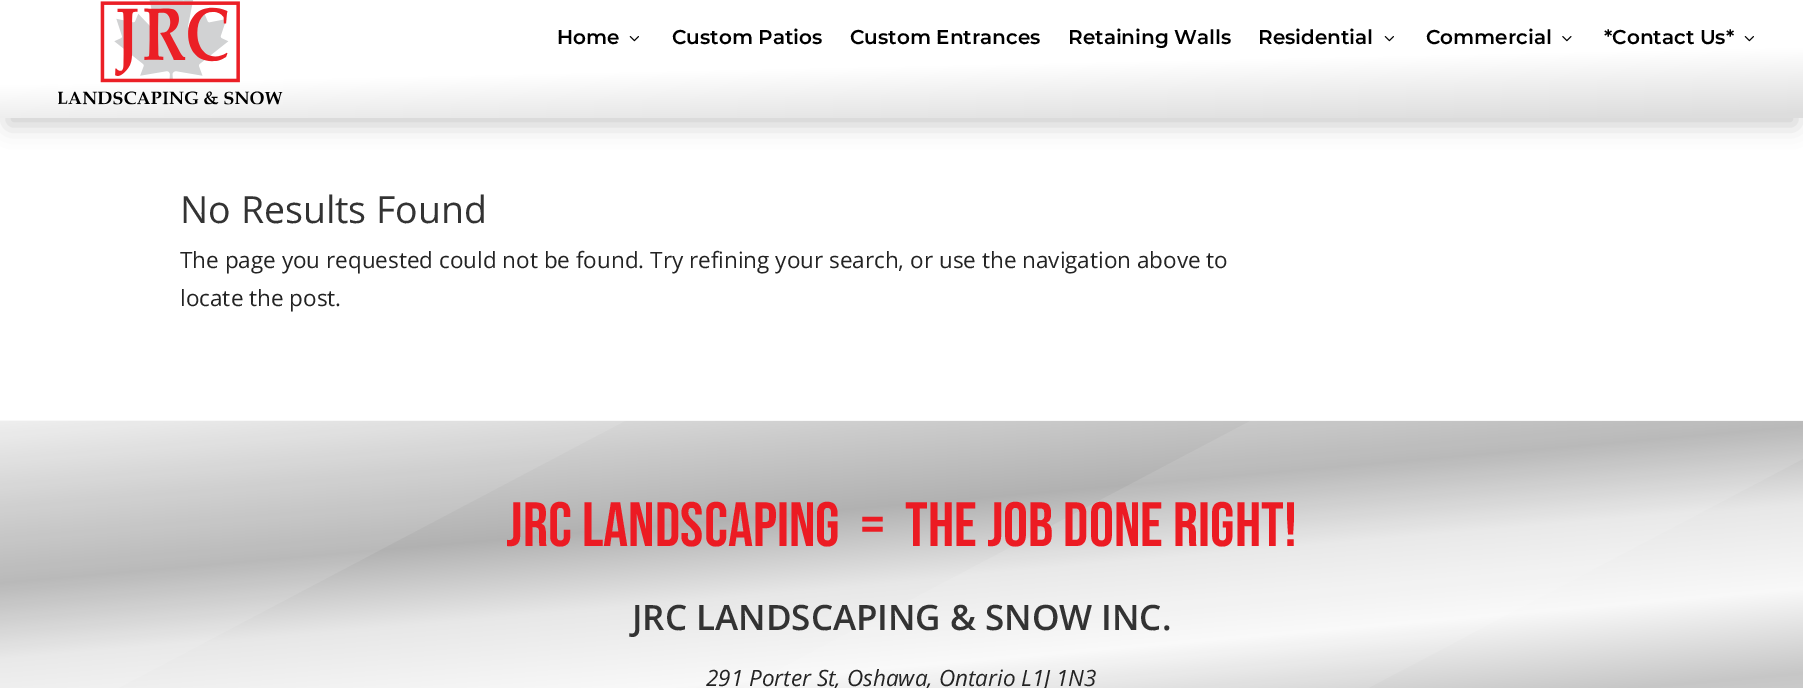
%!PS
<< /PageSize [1803 688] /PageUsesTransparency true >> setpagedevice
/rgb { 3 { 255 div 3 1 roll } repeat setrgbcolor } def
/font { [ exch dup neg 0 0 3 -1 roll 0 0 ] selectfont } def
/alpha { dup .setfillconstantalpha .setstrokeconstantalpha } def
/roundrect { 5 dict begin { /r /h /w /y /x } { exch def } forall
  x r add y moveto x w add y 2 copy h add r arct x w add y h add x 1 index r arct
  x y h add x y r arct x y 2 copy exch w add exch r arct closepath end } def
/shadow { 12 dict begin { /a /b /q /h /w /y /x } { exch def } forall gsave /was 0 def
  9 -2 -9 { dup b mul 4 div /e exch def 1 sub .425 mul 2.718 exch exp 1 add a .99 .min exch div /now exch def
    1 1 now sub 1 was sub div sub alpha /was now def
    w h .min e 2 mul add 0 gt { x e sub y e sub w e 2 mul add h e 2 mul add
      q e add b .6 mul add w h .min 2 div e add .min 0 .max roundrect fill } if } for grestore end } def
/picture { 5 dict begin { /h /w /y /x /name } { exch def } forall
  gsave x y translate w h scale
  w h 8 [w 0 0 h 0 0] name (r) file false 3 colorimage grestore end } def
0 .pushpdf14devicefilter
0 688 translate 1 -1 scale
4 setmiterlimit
255 255 255 rgb
0 0 1803 688 rectfill
0 0 0 rgb
8 -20 1788 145 0 11 0.2 shadow
gsave 0 0 moveto 1803 0 lineto 1803 118 lineto 0 118 lineto closepath clip newpath
<< /ShadingType 2 /ColorSpace /DeviceRGB /Coords [900 -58 904 133] /Extend [true true] /Function << /FunctionType 3 /Domain [0 1] /Functions [<< /FunctionType 2 /Domain [0 1] /C0 [0.933 0.933 0.933] /C1 [1 1 1] /N 1 >> << /FunctionType 2 /Domain [0 1] /C0 [1 1 1] /C1 [1 1 1] /N 1 >> << /FunctionType 2 /Domain [0 1] /C0 [1 1 1] /C1 [0.867 0.867 0.867] /N 1 >>] /Bounds [0.2 0.65] /Encode [0 1 0 1 0 1] >> >> shfill grestore
(img/1.rgb) 58 0 225 105 picture
(img/2.rgb) 629 36 10 6 picture
(img/2.rgb) 1384 36 10 6 picture
(img/3.rgb) 1562 36 10 6 picture
(img/2.rgb) 1744 36 10 6 picture
gsave 0 421 moveto 1803 421 lineto 1803 688 lineto 0 688 lineto closepath clip newpath
<< /ShadingType 2 /ColorSpace /DeviceRGB /Coords [874 345 930 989] /Extend [true true] /Function << /FunctionType 3 /Domain [0 1] /Functions [<< /FunctionType 2 /Domain [0 1] /C0 [0.925 0.925 0.925] /C1 [0.796 0.796 0.796] /N 1 >> << /FunctionType 2 /Domain [0 1] /C0 [0.796 0.796 0.796] /C1 [0.694 0.694 0.694] /N 1 >> << /FunctionType 2 /Domain [0 1] /C0 [0.694 0.694 0.694] /C1 [0.906 0.906 0.906] /N 1 >> << /FunctionType 2 /Domain [0 1] /C0 [0.906 0.906 0.906] /C1 [0.973 0.973 0.973] /N 1 >> << /FunctionType 2 /Domain [0 1] /C0 [0.973 0.973 0.973] /C1 [0.776 0.776 0.776] /N 1 >> << /FunctionType 2 /Domain [0 1] /C0 [0.776 0.776 0.776] /C1 [0.847 0.847 0.847] /N 1 >> << /FunctionType 2 /Domain [0 1] /C0 [0.847 0.847 0.847] /C1 [0.694 0.694 0.694] /N 1 >> << /FunctionType 2 /Domain [0 1] /C0 [0.694 0.694 0.694] /C1 [0.91 0.91 0.91] /N 1 >>] /Bounds [0.13 0.25 0.37 0.5 0.63 0.75 0.88] /Encode [0 1 0 1 0 1 0 1 0 1 0 1 0 1 0 1] >> >> shfill grestore
248 248 248 rgb
0 420 1803 1 rectfill
(img/4.rgb) 0 421 1803 267 picture
/Montserrat-SemiBold 20 font
0 0 0 rgb
[
  [(Home) 557 44]
  [(Custom Patios) 672 44]
  [(Custom Entrances) 850 44]
  [(Retaining Walls) 1068 44]
  [(Residential) 1258 44]
  [(Commercial) 1426 44]
  [(*Contact Us*) 1604 44]
] { aload pop moveto show } forall
/OpenSans-Regular 37.5 font
51 51 51 rgb
180 223 moveto (No Results Found) show
/OpenSans-Regular 22.5 font
35 35 35 rgb
180 268 moveto (The page you requested could not be found. Try refining your search, or use the navigation above to) show
180 306 moveto (locate the post.) show
/BebasNeue-Regular 62.5 font
236 27 35 rgb
506 546 moveto (JRC Landscaping  =  THE JOB DONE RIGHT!) show
/OpenSans-SemiBold 35 font
51 51 51 rgb
632 630 moveto (JRC LANDSCAPING & SNOW INC.) show
/OpenSans-Italic 22.5 font
35 35 35 rgb
706 686 moveto (291 Porter St, Oshawa, Ontario L1J 1N3) show
.poppdf14devicefilter showpage
